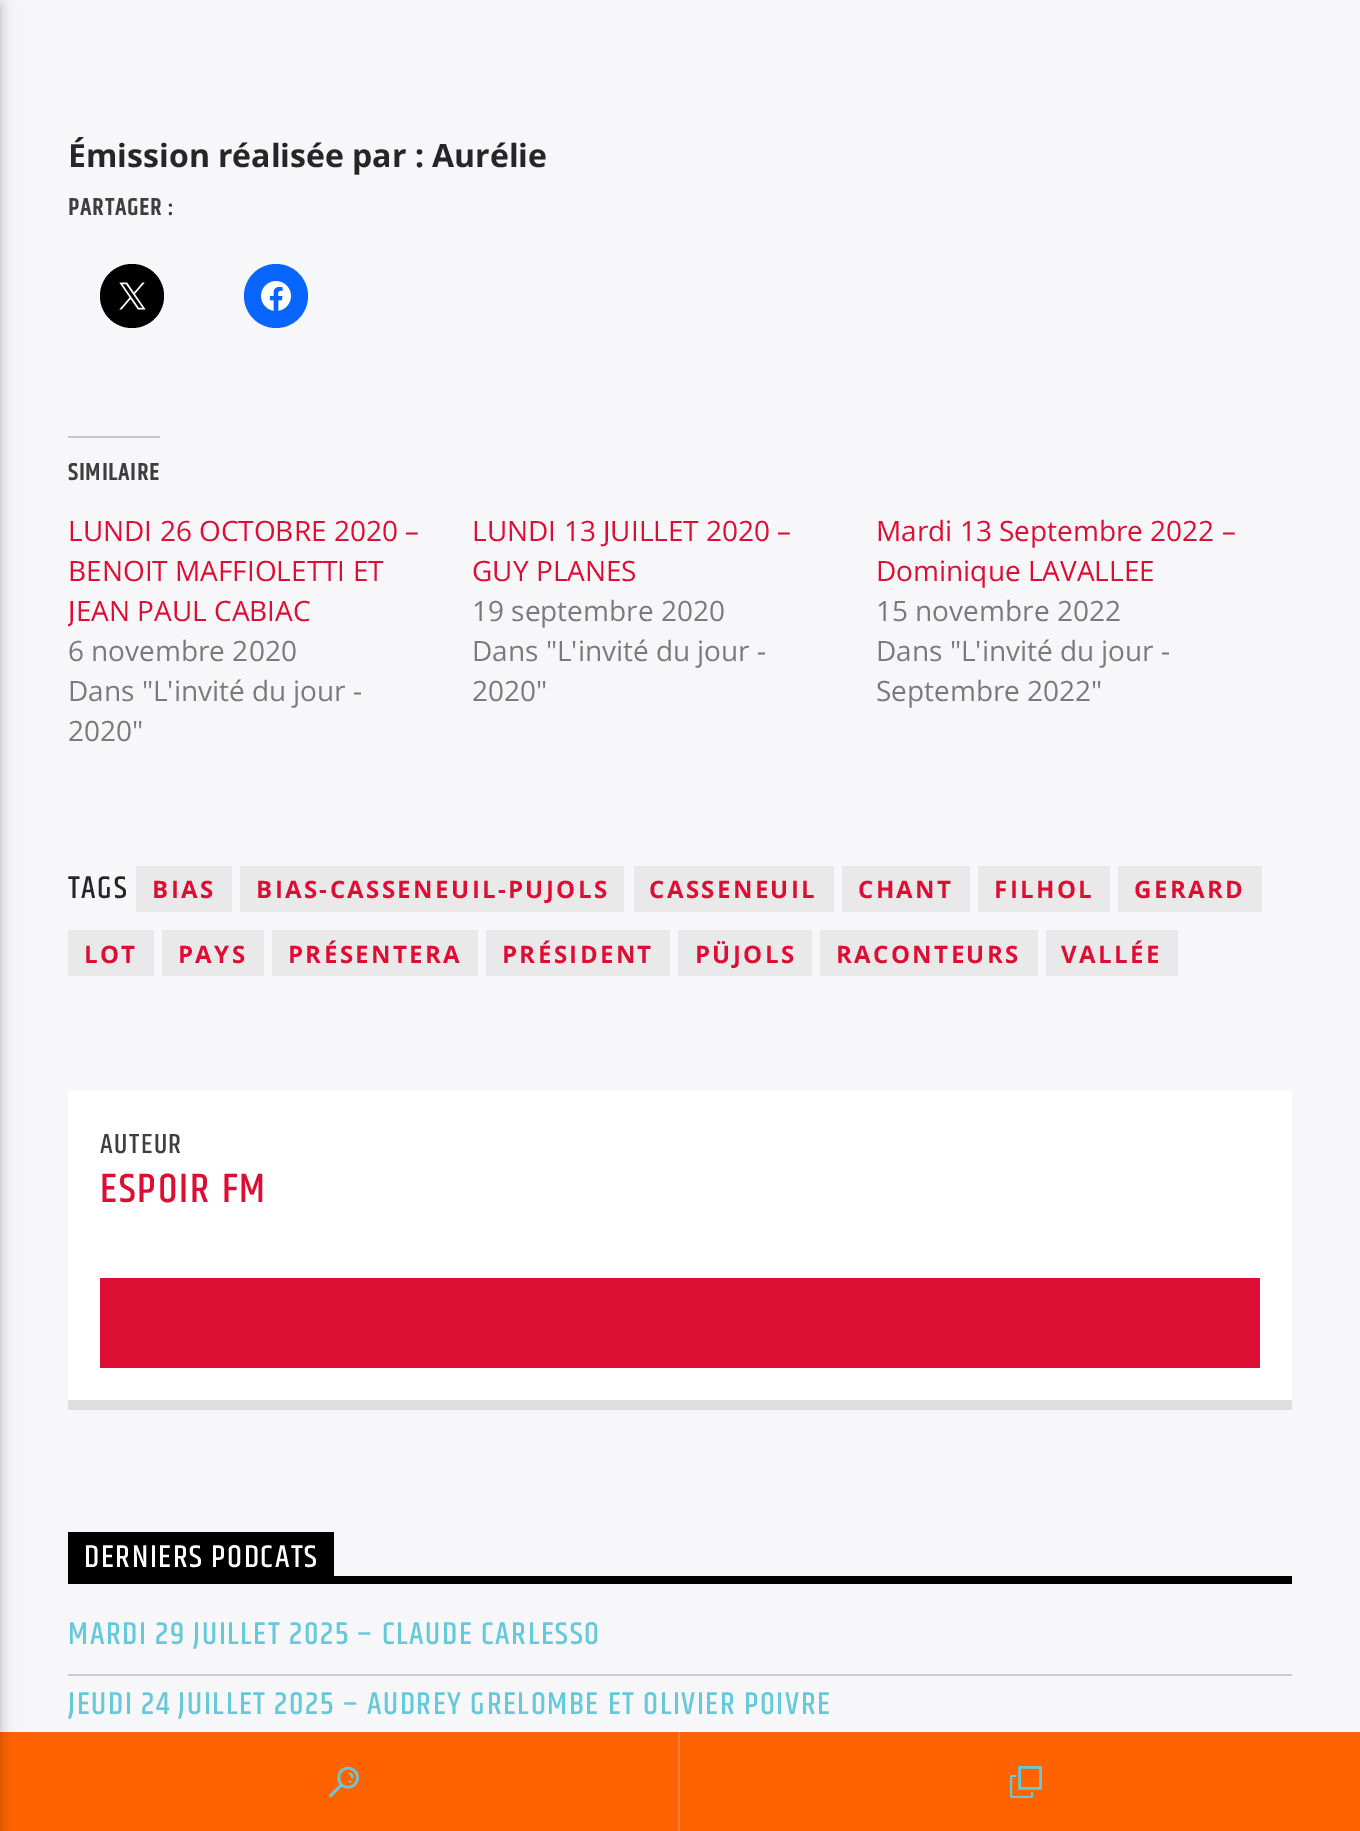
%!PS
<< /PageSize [1360 1831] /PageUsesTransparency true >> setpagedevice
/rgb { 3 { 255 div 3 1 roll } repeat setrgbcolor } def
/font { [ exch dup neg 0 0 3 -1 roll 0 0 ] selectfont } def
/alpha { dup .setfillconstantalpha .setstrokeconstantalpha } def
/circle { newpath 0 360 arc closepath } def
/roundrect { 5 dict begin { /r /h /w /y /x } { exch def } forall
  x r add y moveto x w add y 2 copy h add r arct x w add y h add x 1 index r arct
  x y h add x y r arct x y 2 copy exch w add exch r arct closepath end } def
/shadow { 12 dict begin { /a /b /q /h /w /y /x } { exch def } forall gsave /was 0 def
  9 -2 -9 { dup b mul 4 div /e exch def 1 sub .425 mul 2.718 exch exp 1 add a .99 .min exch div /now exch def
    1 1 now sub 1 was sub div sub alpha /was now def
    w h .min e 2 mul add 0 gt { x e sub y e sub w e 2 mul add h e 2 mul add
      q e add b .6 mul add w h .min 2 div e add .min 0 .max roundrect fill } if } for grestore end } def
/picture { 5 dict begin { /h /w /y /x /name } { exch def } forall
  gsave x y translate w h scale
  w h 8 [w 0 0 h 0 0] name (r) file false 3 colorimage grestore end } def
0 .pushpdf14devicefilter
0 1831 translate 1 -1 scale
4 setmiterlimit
247 247 249 rgb
0 0 1360 1831 rectfill
255 99 0 rgb
0 1732 1360 99 rectfill
0 0 0 rgb
-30 4 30 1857 0 10 0.12 shadow
-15 4 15 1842 0 5 0.16 shadow
132 296 32 circle fill
(img/1.rgb) 119 282 27 28 picture
8 102 255 rgb
276 296 32 circle fill
(img/2.rgb) 261 281 30 30 picture
[
  [68 436 92 2 198 198 199]
  [136 866 96 46 233 233 234]
  [240 866 384 46 233 233 234]
  [634 866 200 46 233 233 234]
  [842 866 128 46 233 233 234]
  [978 866 132 46 233 233 234]
  [1118 866 144 46 233 233 234]
  [68 930 86 46 233 233 234]
  [162 930 102 46 233 233 234]
  [272 930 206 46 233 233 234]
  [486 930 184 46 233 233 234]
  [678 930 134 46 233 233 234]
  [820 930 218 46 233 233 234]
  [1046 930 132 46 233 233 234]
  [68 1400 1224 10 222 222 224]
  [68 1090 1224 310 255 255 255]
  [100 1278 1160 90 221 14 52]
  [334 1576 958 8 0 0 0]
  [68 1532 266 52 0 0 0]
  [68 1674 1224 2 203 203 204]
  [678 1732 2 99 239 129 60]
] { aload pop rgb rectfill } forall
(img/3.rgb) 329 1766 30 32 picture
(img/4.rgb) 1010 1766 32 32 picture
/OpenSans-Bold 32 font
38 38 38 rgb
68 167 moveto (Émission réalisée par : Aurélie) show
/Khand-Bold 24 font
62 62 62 rgb
68 215 moveto 1.25 0 (PARTAGER :) ashow
68 480 moveto 1.25 0 (SIMILAIRE) ashow
/OpenSans-Regular 28 font
221 14 52 rgb
68 541 moveto (LUNDI 26 OCTOBRE 2020 –) show
68 581 moveto (BENOIT MAFFIOLETTI ET) show
gsave
68 510 364 120 rectclip
68 621 moveto (JEAN PAUL CABIAC) show
grestore
122 122 123 rgb
[
  [(6 novembre 2020) 68 661]
  [(Dans "L'invité du jour -) 68 701]
  [(2020") 68 741]
] { aload pop moveto show } forall
221 14 52 rgb
472 541 moveto (LUNDI 13 JUILLET 2020 –) show
472 581 moveto (GUY PLANES) show
122 122 123 rgb
[
  [(19 septembre 2020) 472 621]
  [(Dans "L'invité du jour -) 472 661]
  [(2020") 472 701]
] { aload pop moveto show } forall
221 14 52 rgb
876 541 moveto (Mardi 13 Septembre 2022 –) show
876 581 moveto (Dominique LAVALLEE) show
122 122 123 rgb
[
  [(15 novembre 2022) 876 621]
  [(Dans "L'invité du jour -) 876 661]
  [(Septembre 2022") 876 701]
] { aload pop moveto show } forall
/Khand-Medium 32 font
38 38 38 rgb
68 898 moveto 1.6 0 (TAGS) ashow
/OpenSans-Bold 24 font
221 14 52 rgb
152 898 moveto 2.4 0 (BIAS) ashow
256 898 moveto 2.4 0 (BIAS-CASSENEUIL-PUJOLS) ashow
649 898 moveto 2.4 0 (CASSENEUIL) ashow
858 898 moveto 2.4 0 (CHANT) ashow
994 898 moveto 2.4 0 (FILHOL) ashow
1134 898 moveto 2.4 0 (GERARD) ashow
84 963 moveto 2.4 0 (LOT) ashow
178 963 moveto 2.4 0 (PAYS) ashow
288 963 moveto 2.4 0 (PRÉSENTERA) ashow
502 963 moveto 2.4 0 (PRÉSIDENT) ashow
695 963 moveto 2.4 0 (PÜJOLS) ashow
836 963 moveto 2.4 0 (RACONTEURS) ashow
1061 963 moveto 2.4 0 (VALLÉE) ashow
/Khand-Medium 28 font
62 62 62 rgb
100 1153 moveto 1.5 0 (AUTEUR) ashow
/Khand-Medium 41.5 font
221 14 52 rgb
100 1202 moveto 2 0 (ESPOIR FM) ashow
/Khand-Medium 32 font
255 255 255 rgb
84 1567 moveto 1.6 0 (DERNIERS PODCATS) ashow
100 201 217 rgb
68 1644 moveto 1.6 0 (MARDI 29 JUILLET 2025 – CLAUDE CARLESSO) ashow
68 1714 moveto 1.6 0 (JEUDI 24 JUILLET 2025 – AUDREY GRELOMBE ET OLIVIER POIVRE) ashow
.poppdf14devicefilter showpage
